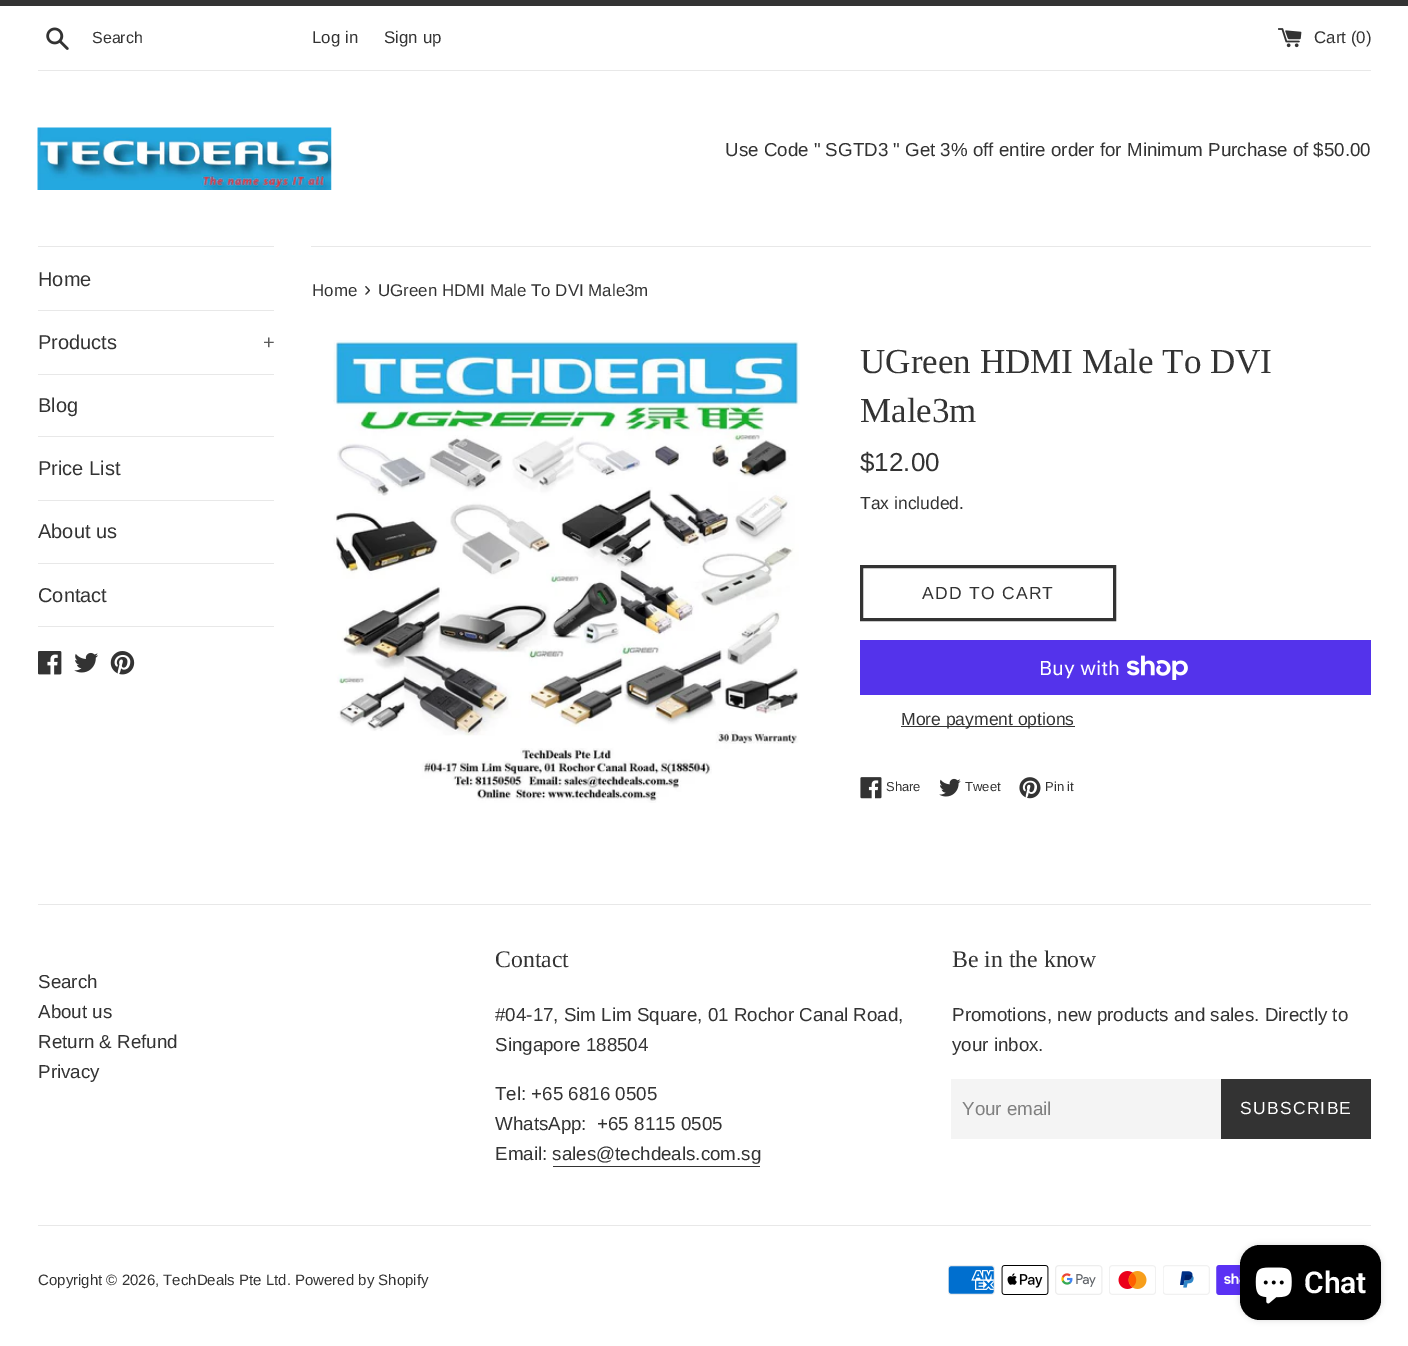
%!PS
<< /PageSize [1408 1346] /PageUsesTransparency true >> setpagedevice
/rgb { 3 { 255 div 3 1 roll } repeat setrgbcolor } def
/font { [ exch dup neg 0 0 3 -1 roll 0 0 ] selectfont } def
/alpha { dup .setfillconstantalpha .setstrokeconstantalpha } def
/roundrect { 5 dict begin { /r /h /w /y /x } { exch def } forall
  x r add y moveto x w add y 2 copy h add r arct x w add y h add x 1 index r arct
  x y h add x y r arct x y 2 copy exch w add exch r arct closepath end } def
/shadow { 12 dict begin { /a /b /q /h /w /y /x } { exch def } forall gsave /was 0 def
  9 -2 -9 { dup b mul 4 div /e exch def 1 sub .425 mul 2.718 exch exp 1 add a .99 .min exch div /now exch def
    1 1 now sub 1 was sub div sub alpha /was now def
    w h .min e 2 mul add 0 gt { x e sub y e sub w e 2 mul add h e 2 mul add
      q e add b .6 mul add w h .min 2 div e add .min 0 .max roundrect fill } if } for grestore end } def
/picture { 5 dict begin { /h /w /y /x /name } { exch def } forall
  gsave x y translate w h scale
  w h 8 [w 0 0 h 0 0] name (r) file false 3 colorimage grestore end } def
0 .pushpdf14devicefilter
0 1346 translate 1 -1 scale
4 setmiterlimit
255 255 255 rgb
0 0 1408 1346 rectfill
51 51 51 rgb
0 0 1408 6 rectfill
(img/1.rgb) 46 27 23 23 picture
(img/2.rgb) 1278 28 24 20 picture
232 232 232 rgb
38 70 1333 1 rectfill
(img/3.rgb) 37 127 295 63 picture
[
  [38 246 236 1 232 232 232]
  [38 310 236 1 232 232 232]
  [38 374 236 1 232 232 232]
  [38 436 236 1 232 232 232]
  [38 500 236 1 232 232 232]
  [38 563 236 1 232 232 232]
  [38 626 236 1 232 232 232]
] { aload pop rgb rectfill } forall
(img/4.rgb) 38 651 24 24 picture
(img/5.rgb) 74 652 24 21 picture
(img/6.rgb) 110 651 25 24 picture
311 246 1060 1 rectfill
(img/7.rgb) 333 340 467 463 picture
51 51 51 rgb
3 setlinewidth
861.5 566.5 253 53 rectstroke
84 51 235 rgb
860 640 511 55 rectfill
(img/8.rgb) 1126 655 62 25 picture
51 51 51 rgb
901 726 174 1 rectfill
(img/9.rgb) 860 777 22 22 picture
(img/10.rgb) 939 778 22 19 picture
(img/11.rgb) 1019 777 22 22 picture
[
  [38 904 1333 1 232 232 232]
  [553 1166 207 1 51 51 51]
  [951 1079 270 60 244 244 244]
  [1221 1079 150 60 51 51 51]
  [38 1225 1333 1 232 232 232]
] { aload pop rgb rectfill } forall
(img/12.rgb) 948 1265 47 30 picture
(img/13.rgb) 1001 1265 48 30 picture
(img/14.rgb) 1055 1265 48 30 picture
(img/15.rgb) 1109 1265 47 30 picture
(img/16.rgb) 1163 1265 47 30 picture
(img/17.rgb) 1216 1265 24 30 picture
0 0 0 rgb
1240 1245 141 75 20 3 0.15 shadow
1240 1245 141 75 20 roundrect fill
(img/18.rgb) 1255 1267 37 37 picture
/LiberationSans-Regular 16 font
51 51 51 rgb
92 43 moveto (Search) show
/LiberationSans-Regular 16.9 font
[
  [(Log in) 312 43]
  [(Sign up) 384 43]
  [(Cart \(0\)) 1314 43]
] { aload pop moveto show } forall
/LiberationSans-Regular 18.75 font
725 156 moveto (Use Code " SGTD3 " Get 3% off entire order for Minimum Purchase of $50.00) show
/LiberationSans-Regular 20 font
38 286 moveto (Home) show
38 349 moveto (Products) show
92 92 92 rgb
263 349 moveto (+) show
51 51 51 rgb
[
  [(Blog) 38 412]
  [(Price List) 38 475]
  [(About us) 38 538]
  [(Contact) 38 602]
] { aload pop moveto show } forall
/LiberationSans-Regular 16.9 font
312 296 moveto (Home) show
/LiberationSans-Regular 21 font
364 296 moveto (›) show
/LiberationSans-Regular 16.9 font
378 296 moveto (UGreen HDMI Male To DVI Male3m) show
/LiberationSerif-Regular 35 font
860 373 moveto (UGreen HDMI Male To DVI) show
860 422 moveto (Male3m) show
/LiberationSans-Regular 26 font
860 471 moveto ($12.00) show
/LiberationSans-Regular 17.5 font
860 509 moveto (Tax included.) show
922 599 moveto 1.25 0 (ADD TO CART) ashow
/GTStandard-Regular 20 font
255 255 255 rgb
1039 675 moveto (Buy with) show
/LiberationSans-Regular 17.5 font
51 51 51 rgb
901 725 moveto (More payment options) show
/LiberationSans-Regular 13 font
[
  [(Share) 886 791]
  [(Tweet) 965 791]
  [(Pin it) 1045 791]
] { aload pop moveto show } forall
/LiberationSans-Regular 18.75 font
[
  [(Search) 38 988]
  [(About us) 38 1018]
  [(Return & Refund) 38 1048]
  [(Privacy) 38 1078]
] { aload pop moveto show } forall
/LiberationSerif-Regular 23.75 font
495 967 moveto (Contact) show
/LiberationSans-Regular 18.75 font
[
  [(#04-17, Sim Lim Square, 01 Rochor Canal Road,) 495 1021]
  [(Singapore 188504) 495 1051]
  [(Tel: +65 6816 0505) 495 1100]
  [(WhatsApp:  +65 8115 0505) 495 1130]
  [(Email: sales@techdeals.com.sg) 495 1160]
] { aload pop moveto show } forall
/LiberationSerif-Regular 23.75 font
952 967 moveto (Be in the know) show
/LiberationSans-Regular 18.75 font
952 1021 moveto (Promotions, new products and sales. Directly to) show
952 1051 moveto (your inbox.) show
128 128 128 rgb
962 1115 moveto (Your email) show
/LiberationSans-Regular 17.5 font
255 255 255 rgb
1240 1114 moveto 1.25 0 (SUBSCRIBE) ashow
/LiberationSans-Regular 15 font
51 51 51 rgb
38 1285 moveto (Copyright © 2026, TechDeals Pte Ltd. Powered by Shopify) show
/Roboto-SemiBold 30 font
255 255 255 rgb
1304 1293 moveto (Chat) show
.poppdf14devicefilter showpage
